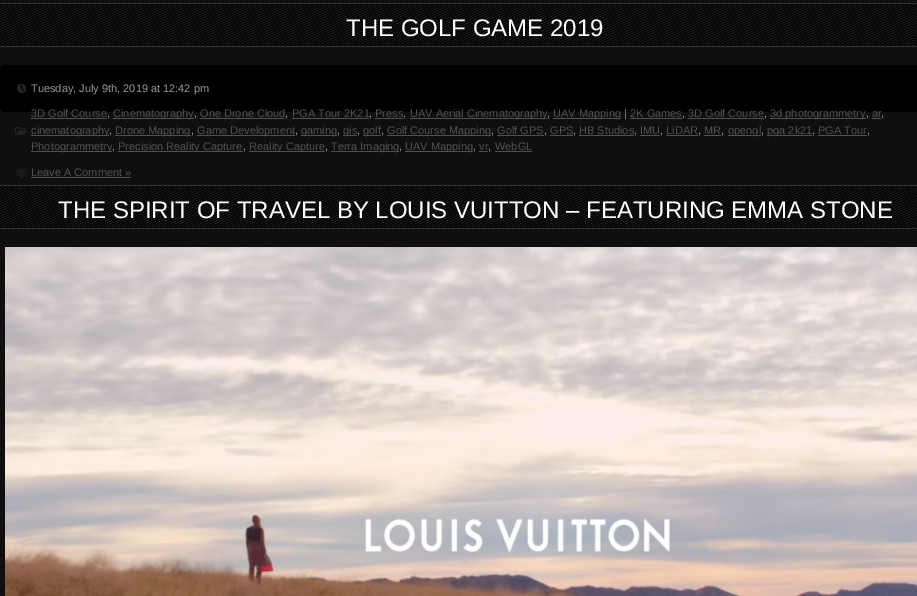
%!PS
<< /PageSize [917 596] >> setpagedevice
/rgb { 3 { 255 div 3 1 roll } repeat setrgbcolor } def
/font { [ exch dup neg 0 0 3 -1 roll 0 0 ] selectfont } def
/roundrect { 5 dict begin { /r /h /w /y /x } { exch def } forall
  x r add y moveto x w add y 2 copy h add r arct x w add y h add x 1 index r arct
  x y h add x y r arct x y 2 copy exch w add exch r arct closepath end } def
/picture { 5 dict begin { /h /w /y /x /name } { exch def } forall
  gsave x y translate w h scale
  w h 8 [w 0 0 h 0 0] name (r) file false 3 colorimage grestore end } def
0 596 translate 1 -1 scale
4 setmiterlimit
15 15 15 rgb
0 0 917 596 rectfill
(img/1.rgb) 0 4 917 42 picture
51 51 51 rgb
0 3 917 1 rectfill
0 46 917 1 rectfill
0 0 0 rgb
0 65 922 47 5 roundrect fill
(img/2.rgb) 17 84 9 9 picture
[
  [31 118 76 1 81 81 81]
  [113 118 81 1 81 81 81]
  [200 118 85 1 81 81 81]
  [292 118 77 1 81 81 81]
  [375 118 28 1 81 81 81]
  [410 118 137 1 81 81 81]
  [553 118 68 1 81 81 81]
  [630 118 52 1 81 81 81]
  [688 118 76 1 81 81 81]
  [770 118 96 1 81 81 81]
  [872 118 9 1 81 81 81]
] { aload pop rgb rectfill } forall
(img/3.rgb) 15 127 12 8 picture
[
  [31 135 78 1 81 81 81]
  [115 135 76 1 81 81 81]
  [197 135 98 1 81 81 81]
  [301 135 36 1 81 81 81]
  [343 135 14 1 81 81 81]
  [363 135 18 1 81 81 81]
  [387 135 104 1 81 81 81]
  [497 135 47 1 81 81 81]
  [550 135 23 1 81 81 81]
  [579 135 55 1 81 81 81]
  [640 135 20 1 81 81 81]
  [666 135 32 1 81 81 81]
  [704 135 17 1 81 81 81]
  [728 135 33 1 81 81 81]
  [767 135 45 1 81 81 81]
  [818 135 49 1 81 81 81]
  [31 151 81 1 81 81 81]
  [118 151 125 1 81 81 81]
  [249 151 76 1 81 81 81]
  [331 151 68 1 81 81 81]
  [405 151 68 1 81 81 81]
  [479 151 9 1 81 81 81]
  [495 151 37 1 81 81 81]
] { aload pop rgb rectfill } forall
(img/4.rgb) 17 169 9 9 picture
31 177 100 1 rectfill
(img/1.rgb) 0 186 917 42 picture
51 51 51 rgb
0 185 917 1 rectfill
0 228 917 1 rectfill
(img/5.rgb) 5 247 912 349 picture
/LiberationSans-Regular 24 font
255 255 255 rgb
346 36 moveto (THE GOLF GAME 2019) show
/LiberationSans-Regular 11 font
153 153 153 rgb
31 92 moveto (Tuesday, July 9th, 2019 at 12:42 pm) show
81 81 81 rgb
31 117 moveto (3D Golf Course) show
153 153 153 rgb
107 117 moveto (,) show
81 81 81 rgb
113 117 moveto (Cinematography) show
153 153 153 rgb
194 117 moveto (,) show
81 81 81 rgb
200 117 moveto (One Drone Cloud) show
153 153 153 rgb
285 117 moveto (,) show
81 81 81 rgb
292 117 moveto (PGA Tour 2K21) show
153 153 153 rgb
369 117 moveto (,) show
81 81 81 rgb
375 117 moveto (Press) show
153 153 153 rgb
403 117 moveto (,) show
81 81 81 rgb
410 117 moveto (UAV Aerial Cinematography) show
153 153 153 rgb
547 117 moveto (,) show
81 81 81 rgb
553 117 moveto (UAV Mapping) show
153 153 153 rgb
624 117 moveto (|) show
81 81 81 rgb
630 117 moveto (2K Games) show
153 153 153 rgb
682 117 moveto (,) show
81 81 81 rgb
688 117 moveto (3D Golf Course) show
153 153 153 rgb
764 117 moveto (,) show
81 81 81 rgb
770 117 moveto (3d photogrammetry) show
153 153 153 rgb
866 117 moveto (,) show
81 81 81 rgb
872 117 moveto (ar) show
153 153 153 rgb
881 117 moveto (,) show
81 81 81 rgb
31 134 moveto (cinematography) show
153 153 153 rgb
109 134 moveto (,) show
81 81 81 rgb
115 134 moveto (Drone Mapping) show
153 153 153 rgb
191 134 moveto (,) show
81 81 81 rgb
197 134 moveto (Game Development) show
153 153 153 rgb
295 134 moveto (,) show
81 81 81 rgb
301 134 moveto (gaming) show
153 153 153 rgb
337 134 moveto (,) show
81 81 81 rgb
343 134 moveto (gis) show
153 153 153 rgb
357 134 moveto (,) show
81 81 81 rgb
363 134 moveto (golf) show
153 153 153 rgb
381 134 moveto (,) show
81 81 81 rgb
387 134 moveto (Golf Course Mapping) show
153 153 153 rgb
491 134 moveto (,) show
81 81 81 rgb
497 134 moveto (Golf GPS) show
153 153 153 rgb
544 134 moveto (,) show
81 81 81 rgb
550 134 moveto (GPS) show
153 153 153 rgb
573 134 moveto (,) show
81 81 81 rgb
579 134 moveto (HB Studios) show
153 153 153 rgb
634 134 moveto (,) show
81 81 81 rgb
640 134 moveto (IMU) show
153 153 153 rgb
660 134 moveto (,) show
81 81 81 rgb
666 134 moveto (LiDAR) show
153 153 153 rgb
698 134 moveto (,) show
81 81 81 rgb
704 134 moveto (MR) show
153 153 153 rgb
721 134 moveto (,) show
81 81 81 rgb
728 134 moveto (opengl) show
153 153 153 rgb
761 134 moveto (,) show
81 81 81 rgb
767 134 moveto (pga 2k21) show
153 153 153 rgb
812 134 moveto (,) show
81 81 81 rgb
818 134 moveto (PGA Tour) show
153 153 153 rgb
867 134 moveto (,) show
81 81 81 rgb
31 150 moveto (Photogrammetry) show
153 153 153 rgb
112 150 moveto (,) show
81 81 81 rgb
118 150 moveto (Precision Reality Capture) show
153 153 153 rgb
243 150 moveto (,) show
81 81 81 rgb
249 150 moveto (Reality Capture) show
153 153 153 rgb
325 150 moveto (,) show
81 81 81 rgb
331 150 moveto (Terra Imaging) show
153 153 153 rgb
399 150 moveto (,) show
81 81 81 rgb
405 150 moveto (UAV Mapping) show
153 153 153 rgb
473 150 moveto (,) show
81 81 81 rgb
479 150 moveto (vr) show
153 153 153 rgb
488 150 moveto (,) show
81 81 81 rgb
495 150 moveto (WebGL) show
31 176 moveto (Leave A Comment ») show
/LiberationSans-Regular 24 font
255 255 255 rgb
58 218 moveto (THE SPIRIT OF TRAVEL BY LOUIS VUITTON – FEATURING EMMA STONE) show
showpage
